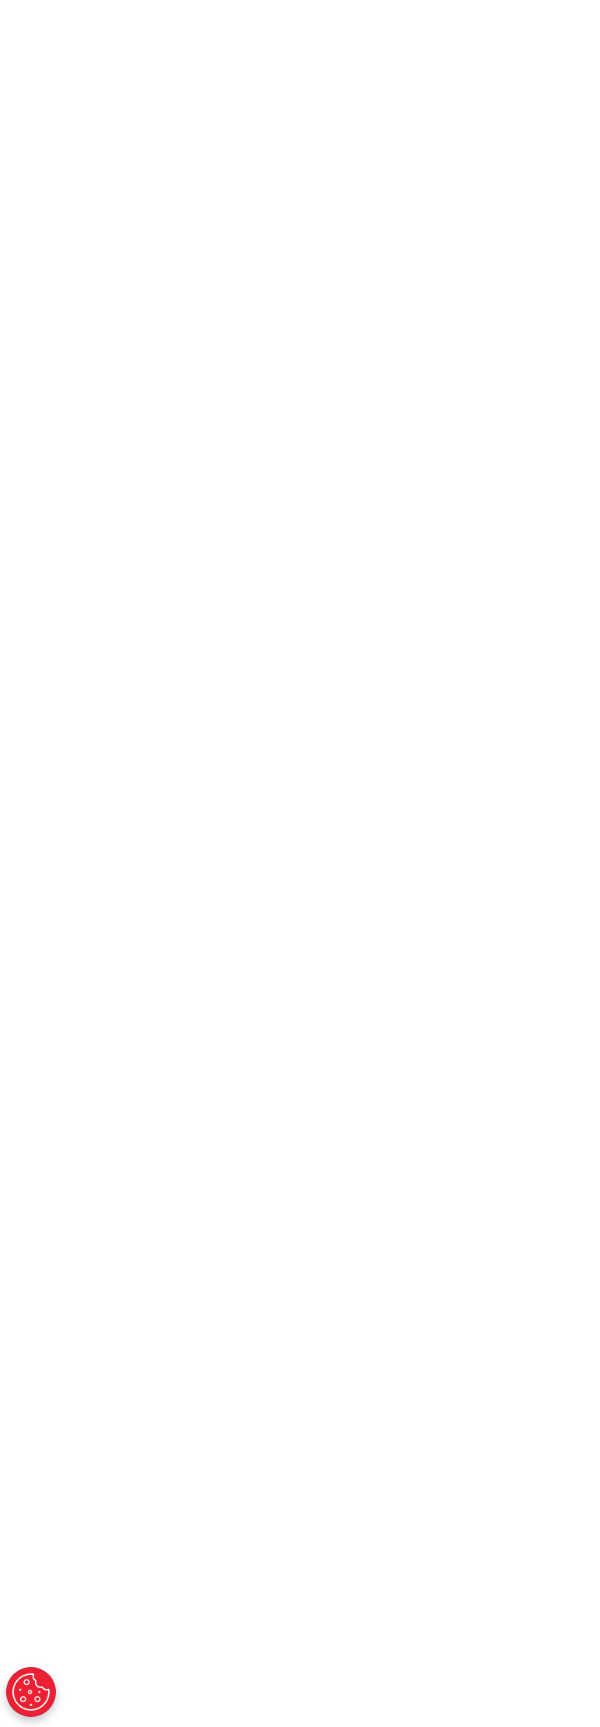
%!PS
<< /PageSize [600 1727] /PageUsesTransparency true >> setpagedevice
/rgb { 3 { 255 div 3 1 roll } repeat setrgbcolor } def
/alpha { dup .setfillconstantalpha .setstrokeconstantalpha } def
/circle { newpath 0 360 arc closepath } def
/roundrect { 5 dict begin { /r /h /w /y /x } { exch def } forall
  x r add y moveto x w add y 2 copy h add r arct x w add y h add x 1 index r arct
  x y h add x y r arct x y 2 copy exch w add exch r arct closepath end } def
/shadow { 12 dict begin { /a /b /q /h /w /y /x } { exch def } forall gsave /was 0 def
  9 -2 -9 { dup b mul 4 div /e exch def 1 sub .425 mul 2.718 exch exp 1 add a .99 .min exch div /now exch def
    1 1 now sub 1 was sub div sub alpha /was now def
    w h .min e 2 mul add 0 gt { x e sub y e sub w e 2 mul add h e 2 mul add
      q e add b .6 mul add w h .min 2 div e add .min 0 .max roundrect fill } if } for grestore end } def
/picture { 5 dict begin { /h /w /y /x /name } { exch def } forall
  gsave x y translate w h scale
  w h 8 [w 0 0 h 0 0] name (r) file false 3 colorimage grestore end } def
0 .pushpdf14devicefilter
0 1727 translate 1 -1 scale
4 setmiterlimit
255 255 255 rgb
0 0 600 1727 rectfill
0 0 0 rgb
6 1671 50 50 25 4 0.2 shadow
106 170 228 rgb
31 1692 25 circle fill
(img/1.rgb) 6 1667 50 50 picture
.poppdf14devicefilter showpage
